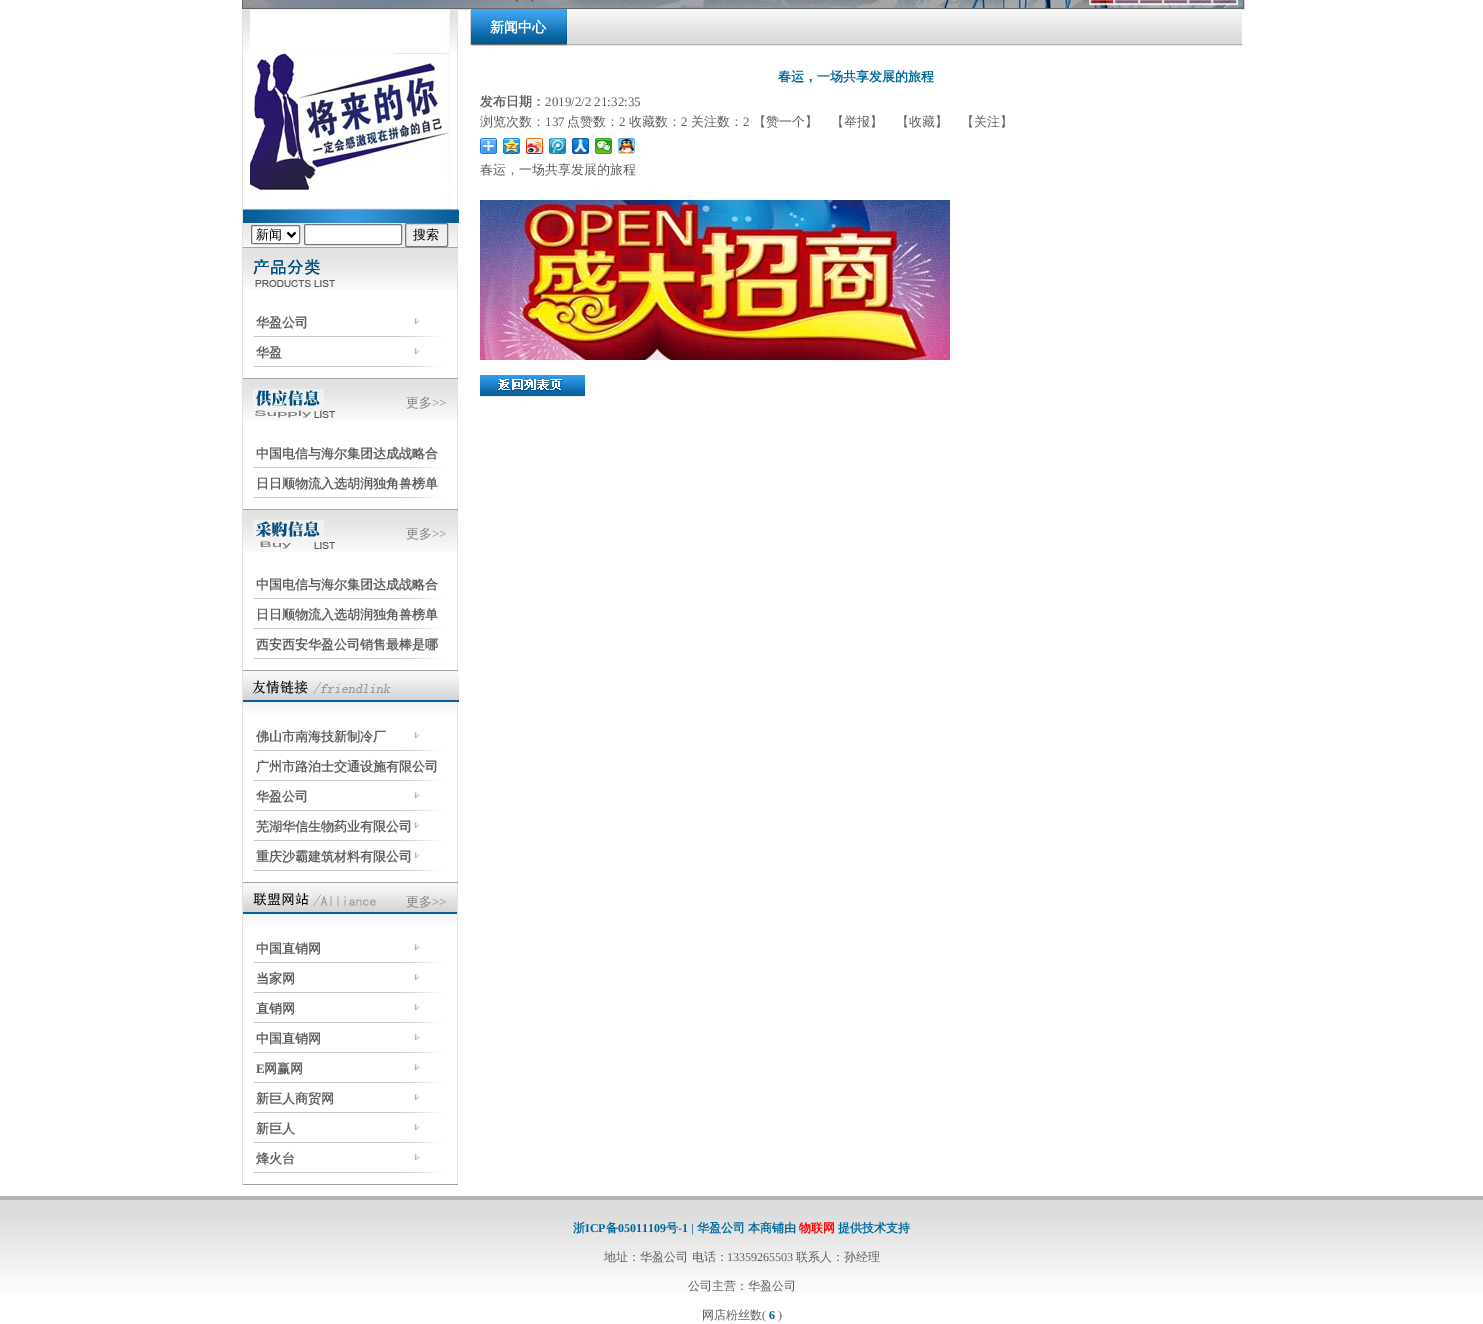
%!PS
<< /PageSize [1483 1324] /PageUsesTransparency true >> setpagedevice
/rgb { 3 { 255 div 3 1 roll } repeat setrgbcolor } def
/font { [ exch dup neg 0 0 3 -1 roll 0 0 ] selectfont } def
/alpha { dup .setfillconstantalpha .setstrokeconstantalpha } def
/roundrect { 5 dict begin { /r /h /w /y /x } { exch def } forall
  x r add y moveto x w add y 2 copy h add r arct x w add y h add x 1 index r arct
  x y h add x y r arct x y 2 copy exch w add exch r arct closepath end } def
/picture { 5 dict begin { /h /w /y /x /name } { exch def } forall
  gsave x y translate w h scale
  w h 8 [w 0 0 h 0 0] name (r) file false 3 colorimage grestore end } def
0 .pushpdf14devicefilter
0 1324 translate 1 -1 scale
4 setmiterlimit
255 255 255 rgb
0 0 1483 1324 rectfill
102 102 102 rgb
242.5 -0.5 1001 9 rectstroke
(img/1.rgb) 243 0 1000 8 picture
0.75 alpha
255 255 255 rgb
1089.5 -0.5 148 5 rectstroke
153 0 0 rgb
1090 0 24 4 rectfill
255 255 255 rgb
1090.5 -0.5 23 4 rectstroke
111 79 103 rgb
1114 0 25 4 rectfill
255 255 255 rgb
1114.5 -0.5 24 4 rectstroke
111 79 103 rgb
1139 0 24 4 rectfill
255 255 255 rgb
1139.5 -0.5 23 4 rectstroke
111 79 103 rgb
1163 0 25 4 rectfill
255 255 255 rgb
1163.5 -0.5 24 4 rectstroke
111 79 103 rgb
1188 0 24 4 rectfill
255 255 255 rgb
1188.5 -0.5 23 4 rectstroke
111 79 103 rgb
1212 0 25 4 rectfill
255 255 255 rgb
1212.5 -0.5 24 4 rectstroke
1 alpha
(img/2.rgb) 567 9 675 37 picture
(img/3.rgb) 470 9 97 37 picture
(img/4.rgb) 480 138 17 16 picture
(img/5.rgb) 503 138 17 16 picture
(img/6.rgb) 526 138 17 16 picture
(img/7.rgb) 549 138 17 16 picture
(img/8.rgb) 572 138 17 16 picture
(img/9.rgb) 595 138 17 16 picture
(img/10.rgb) 618 138 17 16 picture
(img/11.rgb) 480 200 470 160 picture
(img/12.rgb) 480 375 106 23 picture
(img/13.rgb) 243 9 214 42 picture
[
  [457 9 1 201 225 225 225]
  [242 209 216 1 163 163 163]
  [242 9 1 201 225 225 225]
] { aload pop rgb rectfill } forall
(img/14.rgb) 250 9 200 200 picture
(img/15.rgb) 243 223 214 24 picture
[
  [457 223 1 448 225 225 225]
  [242 247 216 1 163 163 163]
  [242 210 1 38 225 225 225]
] { aload pop rgb rectfill } forall
(img/16.rgb) 243 210 216 13 picture
255 255 255 rgb
251.5 225.5 48 18 1.5 roundrect gsave fill grestore
118 118 118 rgb
stroke
0 0 0 rgb
2 setlinewidth
287.5 232.5 moveto 291.5 236.5 lineto 295.5 232.5 lineto stroke
255 255 255 rgb
304.5 224.5 97 20 1.5 roundrect gsave fill grestore
118 118 118 rgb
1 setlinewidth
stroke
239 239 239 rgb
405.5 223.5 42 23 1.5 roundrect gsave fill grestore
118 118 118 rgb
stroke
(img/13.rgb) 243 248 214 42 picture
163 163 163 rgb
242 378 216 1 rectfill
225 225 225 rgb
242 248 1 131 rectfill
(img/17.rgb) 253 258 83 30 picture
(img/18.rgb) 253 318 189 19 picture
(img/18.rgb) 253 348 189 19 picture
(img/13.rgb) 243 379 214 42 picture
163 163 163 rgb
242 509 216 1 rectfill
225 225 225 rgb
242 379 1 131 rectfill
(img/19.rgb) 253 389 83 30 picture
(img/18.rgb) 253 449 189 19 picture
(img/18.rgb) 253 479 189 19 picture
(img/13.rgb) 243 510 214 42 picture
163 163 163 rgb
242 670 216 1 rectfill
225 225 225 rgb
242 510 1 161 rectfill
(img/20.rgb) 253 520 83 30 picture
(img/18.rgb) 253 580 189 19 picture
(img/18.rgb) 253 610 189 19 picture
(img/18.rgb) 253 640 189 19 picture
(img/21.rgb) 243 702 214 11 picture
[
  [457 702 1 483 225 225 225]
  [242 882 216 1 163 163 163]
  [242 671 1 212 225 225 225]
] { aload pop rgb rectfill } forall
(img/22.rgb) 243 671 216 31 picture
(img/18.rgb) 253 732 189 19 picture
(img/18.rgb) 253 762 189 19 picture
(img/18.rgb) 253 792 189 19 picture
(img/18.rgb) 253 822 189 19 picture
(img/18.rgb) 253 852 189 19 picture
(img/21.rgb) 243 914 214 11 picture
163 163 163 rgb
242 1184 216 1 rectfill
225 225 225 rgb
242 883 1 302 rectfill
(img/23.rgb) 243 883 214 31 picture
(img/18.rgb) 253 944 189 19 picture
(img/18.rgb) 253 974 189 19 picture
(img/18.rgb) 253 1004 189 19 picture
(img/18.rgb) 253 1034 189 19 picture
(img/18.rgb) 253 1064 189 19 picture
(img/18.rgb) 253 1094 189 19 picture
(img/18.rgb) 253 1124 189 19 picture
(img/18.rgb) 253 1154 189 19 picture
(img/24.rgb) 0 1196 1483 97 picture
/WenQuanYiZenHei-Bold 14 font
255 255 255 rgb
490 32 moveto (新闻中心) show
/WenQuanYiZenHei-Bold 13 font
0 105 156 rgb
778 81 moveto (春运，一场共享发展的旅程) show
94 94 94 rgb
480 106 moveto (发布日期：) show
/LiberationSerif-Regular 13 font
545 106 moveto (2019/2/2 21:32:35) show
/WenQuanYiZenHei-Medium 13 font
480 126 moveto (浏览次数：) show
/LiberationSerif-Regular 13 font
545 126 moveto (137) show
/WenQuanYiZenHei-Medium 13 font
567 126 moveto (点赞数：) show
/LiberationSerif-Regular 13 font
619 126 moveto (2) show
/WenQuanYiZenHei-Medium 13 font
629 126 moveto (收藏数：) show
/LiberationSerif-Regular 13 font
681 126 moveto (2) show
/WenQuanYiZenHei-Medium 13 font
691 126 moveto (关注数：) show
/LiberationSerif-Regular 13 font
743 126 moveto (2) show
/WenQuanYiZenHei-Medium 13 font
[
  [(【赞一个】) 753 126]
  [(【举报】) 831 126]
  [(【收藏】) 896 126]
  [(【关注】) 961 126]
  [(春运，一场共享发展的旅程) 480 174]
] { aload pop moveto show } forall
0 0 0 rgb
256 239 moveto (新闻) show
413 239 moveto (搜索) show
/WenQuanYiZenHei-Bold 13 font
94 94 94 rgb
256 327 moveto (华盈公司) show
256 357 moveto (华盈) show
/WenQuanYiZenHei-Medium 13 font
128 128 128 rgb
406 407 moveto (更多) show
/LiberationSerif-Regular 13 font
432 407 moveto (>>) show
/WenQuanYiZenHei-Bold 13 font
94 94 94 rgb
256 458 moveto (中国电信与海尔集团达成战略合) show
256 488 moveto (日日顺物流入选胡润独角兽榜单) show
/WenQuanYiZenHei-Medium 13 font
128 128 128 rgb
406 538 moveto (更多) show
/LiberationSerif-Regular 13 font
432 538 moveto (>>) show
/WenQuanYiZenHei-Bold 13 font
94 94 94 rgb
[
  [(中国电信与海尔集团达成战略合) 256 589]
  [(日日顺物流入选胡润独角兽榜单) 256 619]
  [(西安西安华盈公司销售最棒是哪) 256 649]
  [(佛山市南海技新制冷厂) 256 741]
  [(广州市路泊士交通设施有限公司) 256 771]
  [(华盈公司) 256 801]
  [(芜湖华信生物药业有限公司) 256 831]
  [(重庆沙霸建筑材料有限公司) 256 861]
] { aload pop moveto show } forall
/WenQuanYiZenHei-Medium 13 font
128 128 128 rgb
406 906 moveto (更多) show
/LiberationSerif-Regular 13 font
432 906 moveto (>>) show
/WenQuanYiZenHei-Bold 13 font
94 94 94 rgb
[
  [(中国直销网) 256 953]
  [(当家网) 256 983]
  [(直销网) 256 1013]
  [(中国直销网) 256 1043]
] { aload pop moveto show } forall
/LiberationSerif-Bold 13 font
256 1073 moveto (E) show
/WenQuanYiZenHei-Bold 13 font
[
  [(网赢网) 264 1073]
  [(新巨人商贸网) 256 1103]
  [(新巨人) 256 1133]
  [(烽火台) 256 1163]
] { aload pop moveto show } forall
/WenQuanYiZenHei-Bold 12 font
0 105 156 rgb
573 1232 moveto (浙) show
/LiberationSerif-Bold 12 font
585 1232 moveto (ICP) show
/WenQuanYiZenHei-Bold 12 font
606 1232 moveto (备) show
/LiberationSerif-Bold 12 font
618 1232 moveto (05011109) show
/WenQuanYiZenHei-Bold 12 font
666 1232 moveto (号) show
/LiberationSerif-Bold 12 font
678 1232 moveto (-1 |) show
/WenQuanYiZenHei-Bold 12 font
697 1232 moveto (华盈公司) show
748 1232 moveto (本商铺由) show
255 0 0 rgb
799 1232 moveto (物联网) show
0 105 156 rgb
838 1232 moveto (提供技术支持) show
/WenQuanYiZenHei-Medium 12 font
94 94 94 rgb
604 1261 moveto (地址：华盈公司 电话：) show
/LiberationSerif-Regular 12 font
727 1261 moveto (13359265503) show
/WenQuanYiZenHei-Medium 12 font
[
  [(联系人：孙经理) 796 1261]
  [(公司主营：华盈公司) 688 1290]
  [(网店粉丝数) 702 1319]
] { aload pop moveto show } forall
/LiberationSerif-Regular 12 font
762 1319 moveto (\() show
/LiberationSerif-Bold 12 font
0 105 156 rgb
769 1319 moveto (6) show
/LiberationSerif-Regular 12 font
94 94 94 rgb
778 1319 moveto (\)) show
.poppdf14devicefilter showpage
